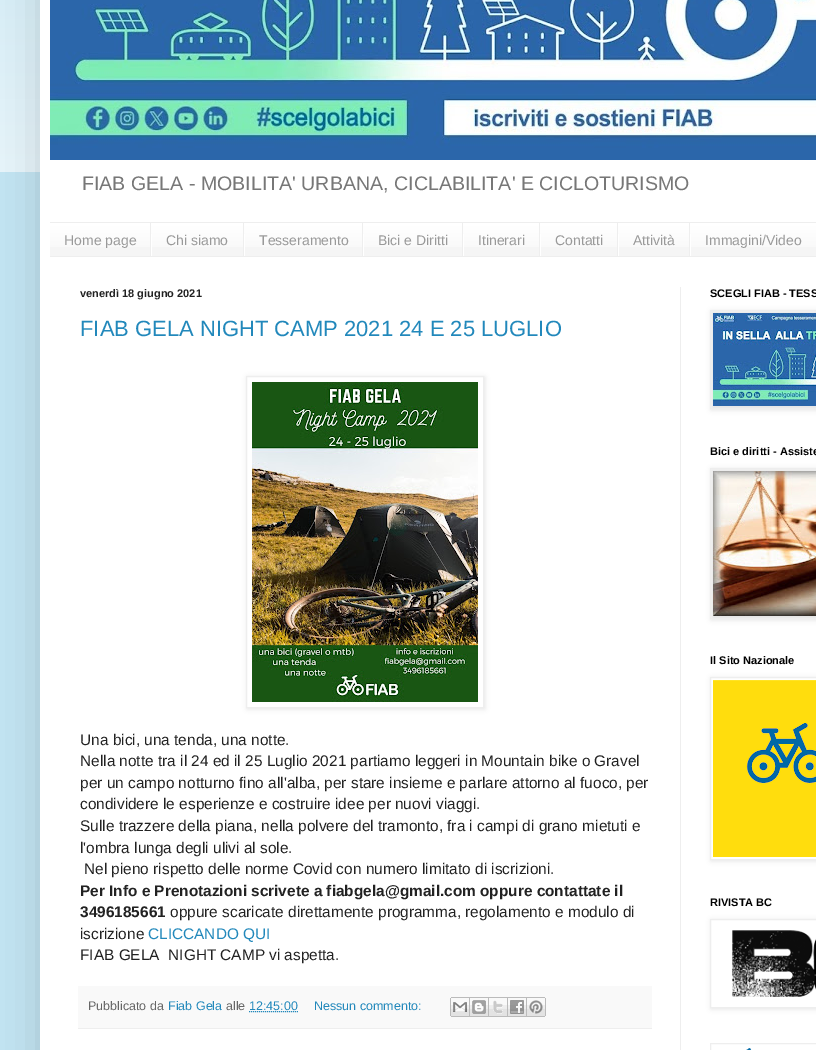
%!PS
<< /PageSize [816 1050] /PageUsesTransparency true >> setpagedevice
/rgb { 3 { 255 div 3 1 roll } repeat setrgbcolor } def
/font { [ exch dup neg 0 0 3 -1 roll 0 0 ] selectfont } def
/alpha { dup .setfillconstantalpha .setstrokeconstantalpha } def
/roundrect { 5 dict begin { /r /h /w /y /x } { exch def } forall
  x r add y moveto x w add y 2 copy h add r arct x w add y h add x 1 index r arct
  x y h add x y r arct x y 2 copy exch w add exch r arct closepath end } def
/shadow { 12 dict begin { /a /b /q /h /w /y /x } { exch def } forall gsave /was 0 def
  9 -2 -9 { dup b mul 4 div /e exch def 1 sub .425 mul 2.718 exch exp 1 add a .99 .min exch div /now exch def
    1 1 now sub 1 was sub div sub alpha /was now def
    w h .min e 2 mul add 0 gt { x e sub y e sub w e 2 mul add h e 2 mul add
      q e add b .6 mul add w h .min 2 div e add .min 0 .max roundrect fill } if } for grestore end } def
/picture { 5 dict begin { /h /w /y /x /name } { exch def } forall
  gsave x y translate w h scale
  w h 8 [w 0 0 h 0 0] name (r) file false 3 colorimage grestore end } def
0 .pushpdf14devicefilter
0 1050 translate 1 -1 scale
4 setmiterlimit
194 228 242 rgb
0 0 816 1050 rectfill
(img/1.rgb) 0 0 40 172 picture
0 0 0 rgb
40 -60 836 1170 0 20 0.15 shadow
255 255 255 rgb
40 0 776 1050 rectfill
(img/2.rgb) 50 0 766 160 picture
245 245 245 rgb
50 224 766 32 rectfill
(img/3.rgb) 50 223 766 24 picture
[
  [50 222 766 1 238 238 238]
  [50 256 766 1 238 238 238]
  [150 223 1 33 238 238 238]
  [243 223 1 33 238 238 238]
  [151 234 1 22 255 255 255]
  [362 223 1 33 238 238 238]
  [244 234 1 22 255 255 255]
  [462 223 1 33 238 238 238]
  [363 234 1 22 255 255 255]
  [539 223 1 33 238 238 238]
  [463 234 1 22 255 255 255]
  [617 223 1 33 238 238 238]
  [540 234 1 22 255 255 255]
  [689 223 1 33 238 238 238]
  [618 234 1 22 255 255 255]
  [690 234 1 22 255 255 255]
  [680 287 1 763 238 238 238]
] { aload pop rgb rectfill } forall
gsave
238 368 moveto 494 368 lineto 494 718 lineto 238 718 lineto closepath 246 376 moveto 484 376 lineto 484 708 lineto 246 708 lineto closepath eoclip newpath
0 0 0 rgb
247 377 238 332 0 2.5 0.1 shadow
grestore
246.5 376.5 237 331 rectstroke
(img/4.rgb) 252 382 226 320 picture
249 249 249 rgb
78 986 574 42 rectfill
238 238 238 rgb
78 1028 574 1 rectfill
34 136 187 rgb
[1 1] 0 setdash
249 1011.5 moveto 298 1011.5 lineto stroke
(img/5.rgb) 450 997 20 20 picture
(img/6.rgb) 470 997 19 20 picture
(img/7.rgb) 489 997 19 20 picture
(img/8.rgb) 508 997 19 20 picture
(img/9.rgb) 527 997 19 20 picture
0 0 0 rgb
711 311 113 99 0 2.5 0.1 shadow
238 238 238 rgb
[] 0 setdash
710.5 310.5 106 98 rectstroke
(img/10.rgb) 713 313 103 93 picture
0 0 0 rgb
711 469 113 151 0 2.5 0.1 shadow
238 238 238 rgb
710.5 468.5 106 150 rectstroke
(img/11.rgb) 713 471 103 145 picture
gsave
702 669 moveto 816 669 lineto 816 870 lineto 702 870 lineto closepath 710 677 moveto 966 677 lineto 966 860 lineto 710 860 lineto closepath eoclip newpath
0 0 0 rgb
711 678 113 183 0 2.5 0.1 shadow
grestore
710.5 677.5 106 182 rectstroke
(img/12.rgb) 713 680 103 177 picture
gsave
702 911 moveto 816 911 lineto 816 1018 lineto 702 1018 lineto closepath 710 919 moveto 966 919 lineto 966 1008 lineto 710 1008 lineto closepath eoclip newpath
0 0 0 rgb
711 920 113 89 0 2.5 0.1 shadow
grestore
710.5 919.5 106 88 rectstroke
(img/13.rgb) 732 930 84 67 picture
710.5 1043.5 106 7 rectstroke
(img/14.rgb) 746 1048 6 2 picture
/LiberationSans-Regular 19.6 font
119 119 119 rgb
82 190 moveto (FIAB GELA - MOBILITA' URBANA, CICLABILITA' E CICLOTURISMO) show
/LiberationSans-Regular 14 font
153 153 153 rgb
[
  [(Home page) 64 245]
  [(Chi siamo) 166 245]
  [(Tesseramento) 259 245]
  [(Bici e Diritti) 378 245]
  [(Itinerari) 478 245]
  [(Contatti) 555 245]
  [(Attività) 633 245]
  [(Immagini/Video) 705 245]
] { aload pop moveto show } forall
/LiberationSans-Bold 11 font
34 34 34 rgb
80 297 moveto (venerdì 18 giugno 2021) show
/LiberationSans-Regular 22 font
34 136 187 rgb
80 336 moveto (FIAB GELA NIGHT CAMP 2021 24 E 25 LUGLIO) show
/LiberationSans-Regular 15.4 font
34 34 34 rgb
[
  [(Una bici, una tenda, una notte.) 80 745]
  [(Nella notte tra il 24 ed il 25 Luglio 2021 partiamo leggeri in Mountain bike o Gravel) 80 766]
  [(per un campo notturno fino all'alba, per stare insieme e parlare attorno al fuoco, per) 80 788]
  [(condividere le esperienze e costruire idee per nuovi viaggi.) 80 809]
  [(Sulle trazzere della piana, nella polvere del tramonto, fra i campi di grano mietuti e) 80 831]
  [(l'ombra lunga degli ulivi al sole.) 80 853]
  [(Nel pieno rispetto delle norme Covid con numero limitato di iscrizioni.) 84 874]
] { aload pop moveto show } forall
/LiberationSans-Bold 15.4 font
80 896 moveto (Per Info e Prenotazioni scrivete a fiabgela@gmail.com oppure contattate il) show
80 917 moveto (3496185661) show
/LiberationSans-Regular 15.4 font
170 917 moveto (oppure scaricate direttamente programma, regolamento e modulo di) show
80 939 moveto (iscrizione) show
34 136 187 rgb
148 939 moveto (CLICCANDO QUI) show
34 34 34 rgb
80 960 moveto (FIAB GELA  NIGHT CAMP vi aspetta.) show
/LiberationSans-Regular 12.5 font
102 102 102 rgb
88 1010 moveto (Pubblicato da) show
34 136 187 rgb
168 1010 moveto (Fiab Gela) show
102 102 102 rgb
226 1010 moveto (alle) show
34 136 187 rgb
249 1010 moveto (12:45:00) show
314 1010 moveto (Nessun commento:) show
/LiberationSans-Bold 11 font
0 0 0 rgb
[
  [(SCEGLI FIAB - TESS) 710 297]
  [(Bici e diritti - Assiste) 710 455]
  [(Il Sito Nazionale) 710 664]
  [(RIVISTA BC) 710 906]
] { aload pop moveto show } forall
.poppdf14devicefilter showpage
